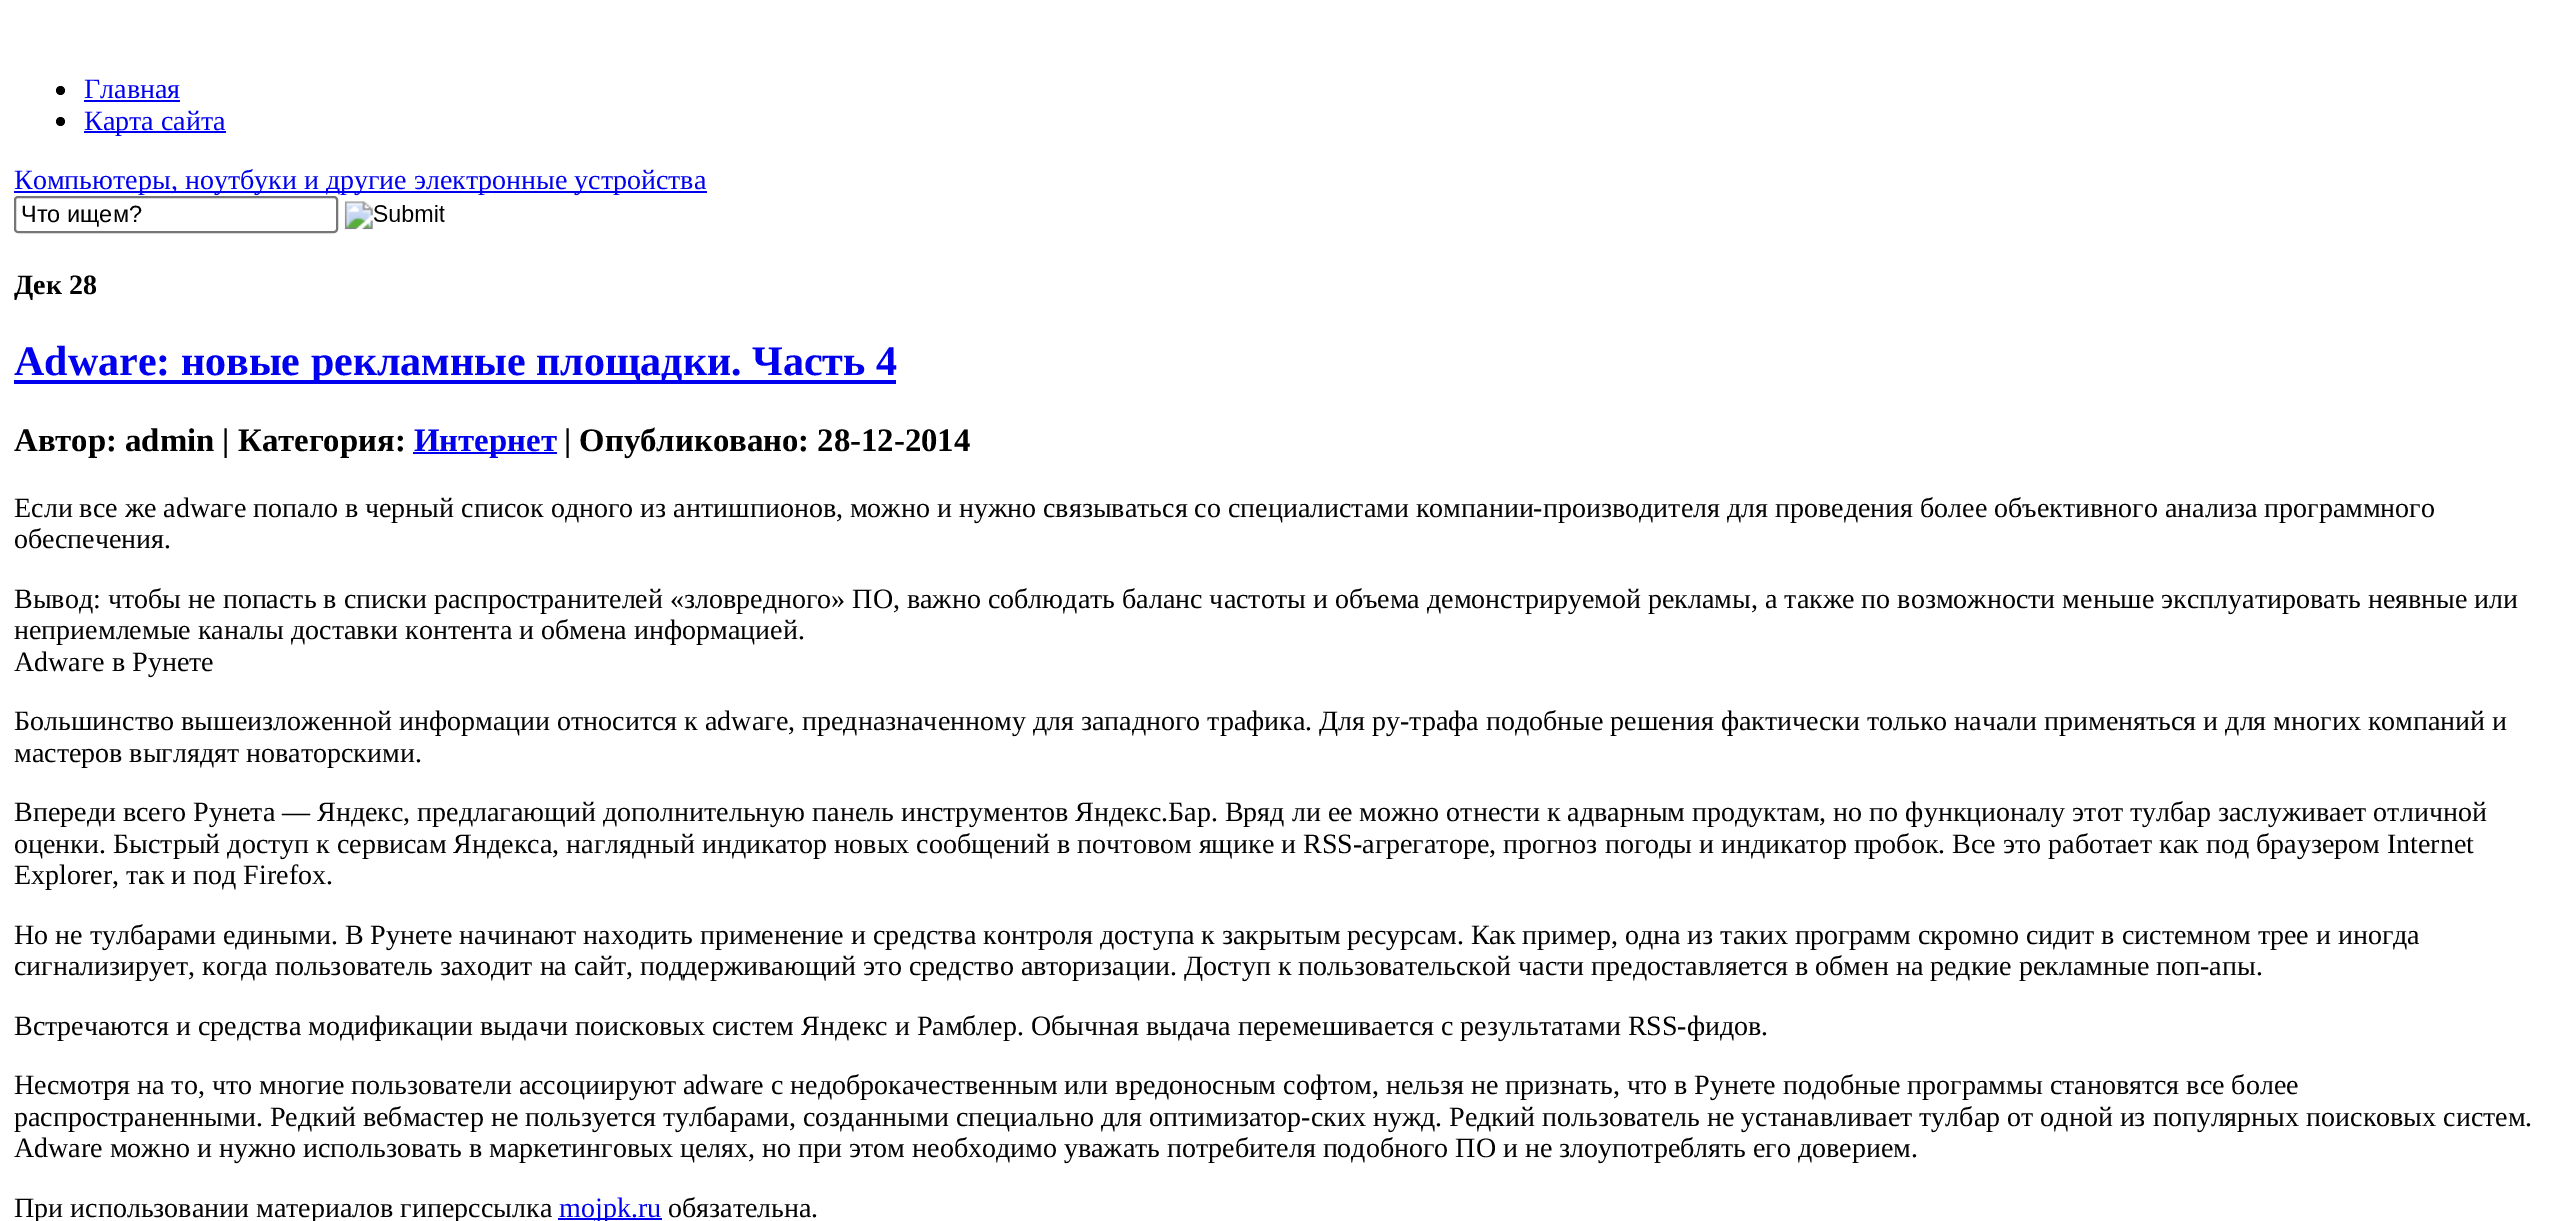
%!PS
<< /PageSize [2561 1221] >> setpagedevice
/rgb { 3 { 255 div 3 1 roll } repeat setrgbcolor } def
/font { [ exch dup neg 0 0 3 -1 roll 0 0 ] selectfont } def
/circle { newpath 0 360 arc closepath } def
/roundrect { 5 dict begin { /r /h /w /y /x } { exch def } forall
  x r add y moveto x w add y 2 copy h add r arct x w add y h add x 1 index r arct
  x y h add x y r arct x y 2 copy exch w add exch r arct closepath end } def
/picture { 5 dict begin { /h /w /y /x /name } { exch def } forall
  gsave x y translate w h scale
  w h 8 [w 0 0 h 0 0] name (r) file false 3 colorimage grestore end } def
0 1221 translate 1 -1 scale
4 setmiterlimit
255 255 255 rgb
0 0 2561 1221 rectfill
0 0 0 rgb
60.5 90.5 4.5 circle fill
0 0 238 rgb
84 100 96 2 rectfill
0 0 0 rgb
60.5 121.5 4.5 circle fill
0 0 238 rgb
84 131 142 2 rectfill
14 191 693 2 rectfill
118 118 118 rgb
2 setlinewidth
15 197 322 35 3 roundrect stroke
(img/1.rgb) 344 201 101 29 picture
[
  [14 380 882 4 0 0 238]
  [413 452 144 2 0 0 238]
  [558 1218 104 2 0 0 238]
] { aload pop rgb rectfill } forall
/LiberationSerif-Regular 28 font
[
  [(Главная) 84 98]
  [(Карта сайта) 84 130]
  [(Компьютеры, ноутбуки и другие электронные устройства) 14 189]
] { aload pop moveto show } forall
/LiberationSans-Regular 23.5 font
0 0 0 rgb
21 222 moveto (Что ищем?) show
/LiberationSerif-Bold 28 font
14 294 moveto (Дек 28) show
/LiberationSerif-Bold 42 font
0 0 238 rgb
14 375 moveto (Adware: новые рекламные площадки. Часть 4) show
/LiberationSerif-Bold 32.75 font
0 0 0 rgb
14 451 moveto (Автор: admin | Категория:) show
0 0 238 rgb
414 451 moveto (Интернет) show
0 0 0 rgb
564 451 moveto (| Опубликовано: 28-12-2014) show
/LiberationSerif-Regular 28 font
[
  [(Если все же аdwаге попало в черный список одного из антишпионов, можно и нужно связываться со специалистами компании-производителя для проведения более объективного анализа программного) 14 517]
  [(обеспечения.) 14 548]
  [(Вывод: чтобы не попасть в списки распространителей «зловредного» ПО, важно соблюдать баланс частоты и объема демонстрируемой рекламы, а также по возможности меньше эксплуатировать неявные или) 14 608]
  [(неприемлемые каналы доставки контента и обмена информацией.) 14 639]
  [(Аdwаге в Рунете) 14 671]
  [(Большинство вышеизложенной информации относится к аdwаге, предназначенному для западного трафика. Для ру-трафа подобные решения фактически только начали применяться и для многих компаний и) 14 730]
  [(мастеров выглядят новаторскими.) 14 762]
  [(Впереди всего Рунета — Яндекс, предлагающий дополнительную панель инструментов Яндекс.Бар. Вряд ли ее можно отнести к адварным продуктам, но по функционалу этот тулбар заслуживает отличной) 14 821]
  [(оценки. Быстрый доступ к сервисам Яндекса, наглядный индикатор новых сообщений в почтовом ящике и RSS-агрегаторе, прогноз погоды и индикатор пробок. Все это работает как под браузером Internet) 14 853]
  [(Explorer, так и под Firefox.) 14 884]
  [(Но не тулбарами едиными. В Рунете начинают находить применение и средства контроля доступа к закрытым ресурсам. Как пример, одна из таких программ скромно сидит в системном трее и иногда) 14 944]
  [(сигнализирует, когда пользователь заходит на сайт, поддерживающий это средство авторизации. Доступ к пользовательской части предоставляется в обмен на редкие рекламные поп-апы.) 14 975]
  [(Встречаются и средства модификации выдачи поисковых систем Яндекс и Рамблер. Обычная выдача перемешивается с результатами RSS-фидов.) 14 1035]
  [(Несмотря на то, что многие пользователи ассоциируют adware с недоброкачественным или вредоносным софтом, нельзя не признать, что в Рунете подобные программы становятся все более) 14 1094]
  [(распространенными. Редкий вебмастер не пользуется тулбарами, созданными специально для оптимизатор-ских нужд. Редкий пользователь не устанавливает тулбар от одной из популярных поисковых систем.) 14 1126]
  [(Adware можно и нужно использовать в маркетинговых целях, но при этом необходимо уважать потребителя подобного ПО и не злоупотреблять его доверием.) 14 1157]
  [(При использовании материалов гиперссылка) 14 1217]
] { aload pop moveto show } forall
0 0 238 rgb
559 1217 moveto (mojpk.ru) show
0 0 0 rgb
668 1217 moveto (обязательна.) show
showpage
